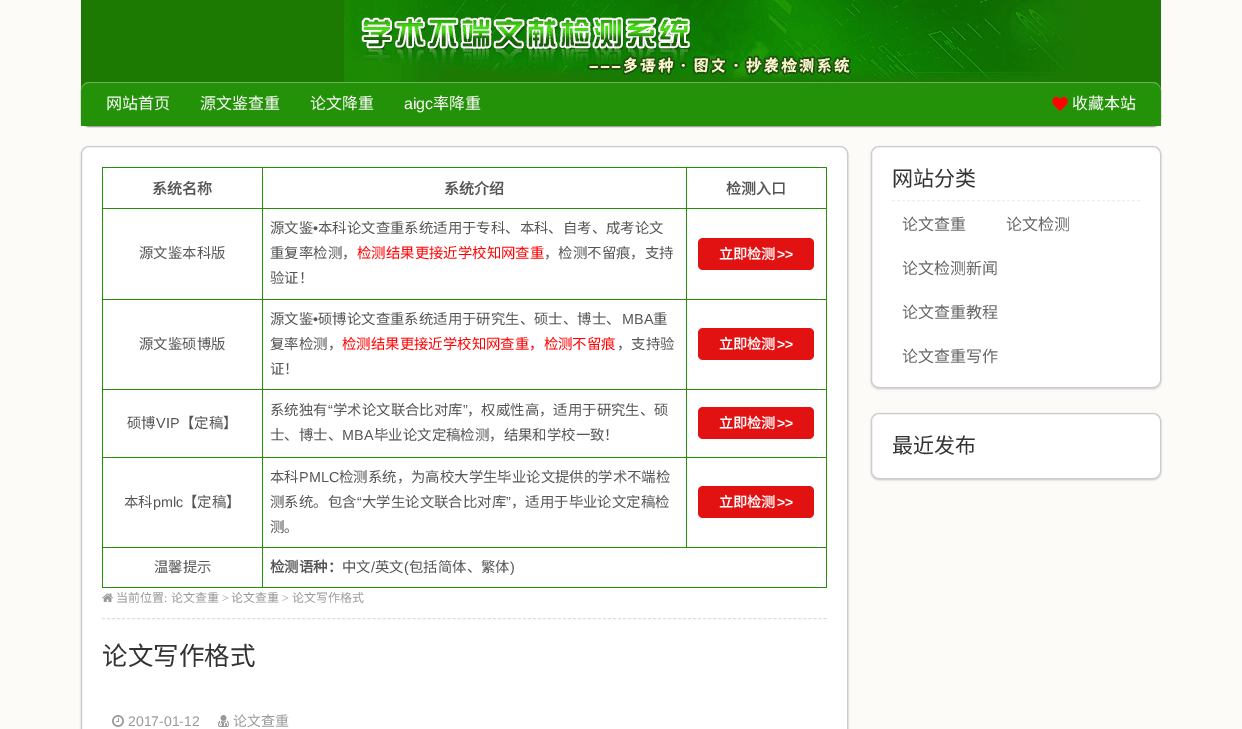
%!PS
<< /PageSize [1242 729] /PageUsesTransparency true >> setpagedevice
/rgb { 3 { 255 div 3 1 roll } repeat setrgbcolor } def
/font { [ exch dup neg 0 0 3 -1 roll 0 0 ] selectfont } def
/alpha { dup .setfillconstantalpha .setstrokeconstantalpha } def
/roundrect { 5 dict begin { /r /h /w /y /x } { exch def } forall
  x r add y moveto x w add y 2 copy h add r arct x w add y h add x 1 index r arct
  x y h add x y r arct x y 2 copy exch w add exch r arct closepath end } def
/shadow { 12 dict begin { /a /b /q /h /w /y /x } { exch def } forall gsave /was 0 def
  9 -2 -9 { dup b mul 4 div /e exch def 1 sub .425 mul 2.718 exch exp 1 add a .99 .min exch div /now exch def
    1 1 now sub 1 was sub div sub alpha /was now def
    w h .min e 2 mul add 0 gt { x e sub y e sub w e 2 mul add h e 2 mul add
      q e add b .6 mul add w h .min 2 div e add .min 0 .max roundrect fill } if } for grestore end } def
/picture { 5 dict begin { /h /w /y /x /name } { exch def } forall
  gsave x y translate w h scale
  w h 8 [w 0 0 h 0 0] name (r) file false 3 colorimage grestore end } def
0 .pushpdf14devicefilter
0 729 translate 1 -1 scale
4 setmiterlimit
252 251 247 rgb
0 0 1242 729 rectfill
(img/1.rgb) 81 0 1080 90 picture
0 0 0 rgb
81 83 1080 44 8 0.5 0.4 shadow
36 146 8 rgb
89 82 moveto 1153 82 lineto 1157.5 82 1161 85.5 1161 90 curveto 1161 126 lineto 81 126 lineto 81 90 lineto 81 85.5 84.5 82 89 82 curveto closepath fill
0.3 alpha
255 255 255 rgb
89 83 moveto 1153 83 lineto 1157 83 1161 87 1161 91 curveto 1161 90 lineto 1161 86 1157 82 1153 82 curveto 89 82 lineto 85 82 81 86 81 90 curveto 81 91 lineto 81 87 85 83 89 83 curveto closepath fill
1 alpha
(img/2.rgb) 1052 96 16 16 picture
0 0 0 rgb
81 147 767 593 8 1 0.2 shadow
255 255 255 rgb
81.5 146.5 766 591 7.5 roundrect gsave fill grestore
204 204 204 rgb
stroke
[
  [686 167 141 1 36 143 9]
  [686 208 141 1 36 143 9]
  [686 299 141 1 36 143 9]
  [686 389 141 1 36 143 9]
  [686 457 141 1 36 143 9]
  [262 547 565 1 36 143 9]
  [686 457 1 91 36 143 9]
  [262 457 425 1 36 143 9]
  [686 389 1 69 36 143 9]
  [262 389 425 1 36 143 9]
  [686 299 1 91 36 143 9]
  [262 299 425 1 36 143 9]
  [686 208 1 92 36 143 9]
  [262 208 425 1 36 143 9]
  [686 167 1 42 36 143 9]
  [262 167 425 1 36 143 9]
  [826 547 1 41 36 143 9]
  [262 587 565 1 36 143 9]
  [262 547 1 41 36 143 9]
  [102 547 161 1 36 143 9]
  [262 457 1 91 36 143 9]
  [102 457 161 1 36 143 9]
  [262 389 1 69 36 143 9]
  [102 389 161 1 36 143 9]
  [262 299 1 91 36 143 9]
  [102 299 161 1 36 143 9]
  [262 208 1 92 36 143 9]
  [102 208 161 1 36 143 9]
  [262 167 1 42 36 143 9]
  [102 167 161 1 36 143 9]
  [102 587 161 1 36 143 9]
  [102 547 1 41 36 143 9]
  [102 457 1 91 36 143 9]
  [102 389 1 69 36 143 9]
  [102 299 1 91 36 143 9]
  [102 208 1 92 36 143 9]
  [102 167 1 42 36 143 9]
  [826 457 1 91 36 143 9]
  [826 389 1 69 36 143 9]
  [826 299 1 91 36 143 9]
  [826 208 1 92 36 143 9]
  [826 167 1 42 36 143 9]
] { aload pop rgb rectfill } forall
226 18 18 rgb
698 238 116 32 5 roundrect fill
698 328 116 32 5 roundrect fill
698 407 116 32 5 roundrect fill
698 486 116 32 5 roundrect fill
(img/3.rgb) 102 593 11 9 picture
221 221 221 rgb
[3 2.01] 0 setdash
102 618.5 moveto 827 618.5 lineto stroke
(img/4.rgb) 112 715 12 12 picture
(img/5.rgb) 218 715 11 12 picture
0 0 0 rgb
871 147 290 242 8 1 0.2 shadow
255 255 255 rgb
871.5 146.5 289 241 7.5 roundrect gsave fill grestore
204 204 204 rgb
[] 0 setdash
stroke
238 238 238 rgb
[3 2] 0 setdash
892 200.5 moveto 1140 200.5 lineto stroke
0 0 0 rgb
871 414 290 66 8 1 0.2 shadow
255 255 255 rgb
871.5 413.5 289 65 7.5 roundrect gsave fill grestore
204 204 204 rgb
[] 0 setdash
stroke
/NotoSansCJKSC-Regular 16 font
255 255 255 rgb
[
  [(网站首页) 106 109]
  [(源文鉴查重) 200 109]
  [(论文降重) 310 109]
] { aload pop moveto show } forall
/LiberationSans-Regular 16 font
404 109 moveto (aigc) show
/NotoSansCJKSC-Regular 16 font
433 109 moveto (率降重) show
1072 109 moveto (收藏本站) show
/NotoSansCJKSC-Bold 15 font
85 85 85 rgb
[
  [(系统名称) 152 194]
  [(系统介绍) 444 194]
  [(检测入口) 726 194]
] { aload pop moveto show } forall
/NotoSansCJKSC-Regular 14.4 font
139 258 moveto (源文鉴本科版) show
270 233 moveto (源文鉴) show
/LiberationSans-Regular 14.4 font
313 233 moveto (•) show
/NotoSansCJKSC-Regular 14.4 font
318 233 moveto (本科论文查重系统适用于专科、本科、自考、成考论文) show
270 258 moveto (重复率检测，) show
255 0 0 rgb
357 258 moveto (检测结果更接近学校知网查重) show
85 85 85 rgb
544 258 moveto (，检测不留痕，支持) show
270 283 moveto (验证！) show
/NotoSansCJKSC-Bold 14 font
255 255 255 rgb
719 259 moveto (立即检测) show
/LiberationSans-Bold 14 font
777 259 moveto (>>) show
/NotoSansCJKSC-Regular 14.4 font
85 85 85 rgb
139 349 moveto (源文鉴硕博版) show
270 324 moveto (源文鉴) show
/LiberationSans-Regular 14.4 font
313 324 moveto (•) show
/NotoSansCJKSC-Regular 14.4 font
318 324 moveto (硕博论文查重系统适用于研究生、硕士、博士、) show
/LiberationSans-Regular 14.4 font
622 324 moveto (MBA) show
/NotoSansCJKSC-Regular 14.4 font
653 324 moveto (重) show
270 349 moveto (复率检测，) show
255 0 0 rgb
342 349 moveto (检测结果更接近学校知网查重，检测不留痕) show
85 85 85 rgb
617 349 moveto (，支持验) show
270 374 moveto (证！) show
/NotoSansCJKSC-Bold 14 font
255 255 255 rgb
719 349 moveto (立即检测) show
/LiberationSans-Bold 14 font
777 349 moveto (>>) show
/NotoSansCJKSC-Regular 14.4 font
85 85 85 rgb
127 428 moveto (硕博) show
/LiberationSans-Regular 14.4 font
156 428 moveto (VIP) show
/NotoSansCJKSC-Regular 14.4 font
180 428 moveto (【定稿】) show
270 415 moveto (系统独有) show
/LiberationSans-Regular 14.4 font
328 415 moveto (“) show
/NotoSansCJKSC-Regular 14.4 font
333 415 moveto (学术论文联合比对库) show
/LiberationSans-Regular 14.4 font
463 415 moveto (”) show
/NotoSansCJKSC-Regular 14.4 font
467 415 moveto (，权威性高，适用于研究生、硕) show
270 440 moveto (士、博士、) show
/LiberationSans-Regular 14.4 font
342 440 moveto (MBA) show
/NotoSansCJKSC-Regular 14.4 font
374 440 moveto (毕业论文定稿检测，结果和学校一致！) show
/NotoSansCJKSC-Bold 14 font
255 255 255 rgb
719 428 moveto (立即检测) show
/LiberationSans-Bold 14 font
777 428 moveto (>>) show
/NotoSansCJKSC-Regular 14.4 font
85 85 85 rgb
124 507 moveto (本科) show
/LiberationSans-Regular 14.4 font
153 507 moveto (pmlc) show
/NotoSansCJKSC-Regular 14.4 font
183 507 moveto (【定稿】) show
270 482 moveto (本科) show
/LiberationSans-Regular 14.4 font
299 482 moveto (PMLC) show
/NotoSansCJKSC-Regular 14.4 font
339 482 moveto (检测系统，为高校大学生毕业论文提供的学术不端检) show
270 507 moveto (测系统。包含) show
/LiberationSans-Regular 14.4 font
357 507 moveto (“) show
/NotoSansCJKSC-Regular 14.4 font
362 507 moveto (大学生论文联合比对库) show
/LiberationSans-Regular 14.4 font
506 507 moveto (”) show
/NotoSansCJKSC-Regular 14.4 font
511 507 moveto (，适用于毕业论文定稿检) show
270 532 moveto (测。) show
/NotoSansCJKSC-Bold 14 font
255 255 255 rgb
719 507 moveto (立即检测) show
/LiberationSans-Bold 14 font
777 507 moveto (>>) show
/NotoSansCJKSC-Regular 14.4 font
85 85 85 rgb
154 572 moveto (温馨提示) show
/NotoSansCJKSC-Bold 14.4 font
270 572 moveto (检测语种：) show
/NotoSansCJKSC-Regular 14.4 font
342 572 moveto (中文) show
/LiberationSans-Regular 14.4 font
371 572 moveto (/) show
/NotoSansCJKSC-Regular 14.4 font
375 572 moveto (英文) show
/LiberationSans-Regular 14.4 font
404 572 moveto (\() show
/NotoSansCJKSC-Regular 14.4 font
409 572 moveto (包括简体、繁体) show
/LiberationSans-Regular 14.4 font
510 572 moveto (\)) show
/NotoSansCJKSC-Regular 12 font
153 153 153 rgb
116 602 moveto (当前位置) show
/LiberationSerif-Regular 12 font
164 602 moveto (:) show
/NotoSansCJKSC-Regular 12 font
171 602 moveto (论文查重) show
/LiberationSerif-Regular 12 font
222 602 moveto (>) show
/NotoSansCJKSC-Regular 12 font
231 602 moveto (论文查重) show
/LiberationSerif-Regular 12 font
282 602 moveto (>) show
/NotoSansCJKSC-Regular 12 font
292 602 moveto (论文写作格式) show
/NotoSansCJKSC-Regular 25.5 font
51 51 51 rgb
102 665 moveto (论文写作格式) show
/LiberationSans-Regular 14 font
153 153 153 rgb
128 726 moveto (2017-01-12) show
/NotoSansCJKSC-Regular 14 font
233 726 moveto (论文查重) show
/NotoSansCJKSC-Regular 21 font
51 51 51 rgb
892 186 moveto (网站分类) show
/NotoSansCJKSC-Regular 16 font
102 102 102 rgb
[
  [(论文查重) 902 230]
  [(论文检测) 1006 230]
  [(论文检测新闻) 902 274]
  [(论文查重教程) 902 318]
  [(论文查重写作) 902 362]
] { aload pop moveto show } forall
/NotoSansCJKSC-Regular 21 font
51 51 51 rgb
892 453 moveto (最近发布) show
.poppdf14devicefilter showpage
